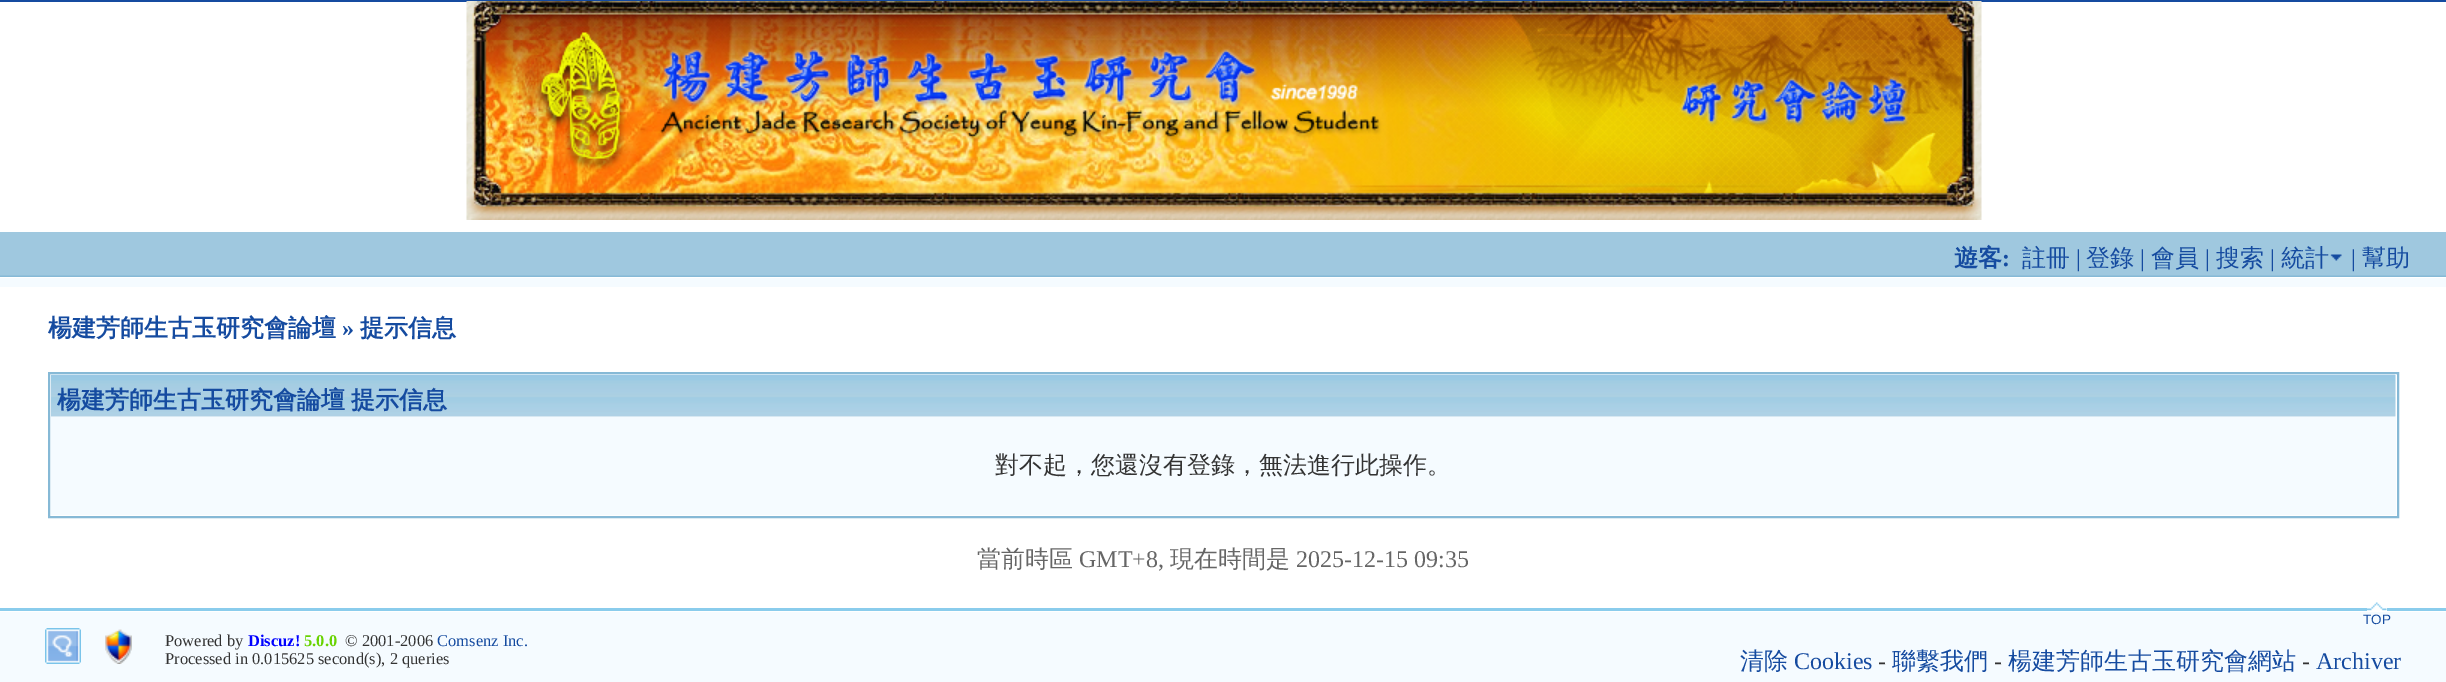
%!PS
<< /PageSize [2446 682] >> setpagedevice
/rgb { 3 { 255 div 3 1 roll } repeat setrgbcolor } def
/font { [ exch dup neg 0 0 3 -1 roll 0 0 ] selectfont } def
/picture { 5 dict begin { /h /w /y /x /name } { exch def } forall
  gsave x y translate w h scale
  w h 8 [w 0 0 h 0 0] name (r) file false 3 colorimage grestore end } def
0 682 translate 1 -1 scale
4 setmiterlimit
255 255 255 rgb
0 0 2446 682 rectfill
21 75 160 rgb
0 0 2446 2 rectfill
(img/1.rgb) 466 1 1516 219 picture
(img/2.rgb) 0 232 2446 45 picture
(img/3.rgb) 2330 254 12 7 picture
245 251 255 rgb
0 278 2446 9 rectfill
134 185 214 rgb
2 setlinewidth
49 373 2349 144 rectstroke
(img/4.rgb) 51 374 2345 43 picture
[
  [51 417 2345 98 245 251 255]
  [0 608 2446 3 138 204 236]
  [2367 608 20 3 255 255 255]
] { aload pop rgb rectfill } forall
(img/5.rgb) 2367 602 20 9 picture
245 251 255 rgb
0 612 2446 70 rectfill
(img/6.rgb) 45 628 36 36 picture
(img/7.rgb) 105 629 27 35 picture
/WenQuanYiZenHei-Bold 24 font
21 75 160 rgb
1954 266 moveto (遊客) show
/LiberationSerif-Bold 24 font
2002 266 moveto (:) show
/WenQuanYiZenHei-Medium 24 font
2022 266 moveto (註冊) show
/LiberationSerif-Regular 24 font
2076 266 moveto (|) show
/WenQuanYiZenHei-Medium 24 font
2086 266 moveto (登錄) show
/LiberationSerif-Regular 24 font
2140 266 moveto (|) show
/WenQuanYiZenHei-Medium 24 font
2151 266 moveto (會員) show
/LiberationSerif-Regular 24 font
2205 266 moveto (|) show
/WenQuanYiZenHei-Medium 24 font
2216 266 moveto (搜索) show
/LiberationSerif-Regular 24 font
2270 266 moveto (|) show
/WenQuanYiZenHei-Medium 24 font
2281 266 moveto (統計) show
/LiberationSerif-Regular 24 font
2351 266 moveto (|) show
/WenQuanYiZenHei-Medium 24 font
2362 266 moveto (幫助) show
/WenQuanYiZenHei-Bold 24 font
48 336 moveto (楊建芳師生古玉研究會論壇) show
/LiberationSerif-Bold 24 font
342 336 moveto (») show
/WenQuanYiZenHei-Bold 24 font
360 336 moveto (提示信息) show
57 408 moveto -1 0 32 (楊建芳師生古玉研究會論壇 提示信息) widthshow
/WenQuanYiZenHei-Medium 24 font
51 51 51 rgb
995 473 moveto (對不起，您還沒有登錄，無法進行此操作。) show
102 102 102 rgb
977 567 moveto (當前時區) show
/LiberationSerif-Regular 24 font
1079 567 moveto (GMT+8,) show
/WenQuanYiZenHei-Medium 24 font
1170 567 moveto (現在時間是) show
/LiberationSerif-Regular 24 font
1296 567 moveto (2025-12-15 09:35) show
/LiberationSerif-Regular 16.5 font
51 51 51 rgb
165 646 moveto (Powered by) show
/LiberationSerif-Bold 16.5 font
0 0 255 rgb
248 646 moveto (Discuz!) show
104 211 0 rgb
304 646 moveto (5.0.0) show
/LiberationSerif-Regular 16.5 font
51 51 51 rgb
345 646 moveto (© 2001-2006) show
21 75 160 rgb
437 646 moveto (Comsenz Inc.) show
51 51 51 rgb
165 664 moveto (Processed in 0.015625 second\(s\), 2 queries) show
/LiberationSans-Regular 13.5 font
21 75 160 rgb
2363 624 moveto (TOP) show
/WenQuanYiZenHei-Medium 24 font
1740 669 moveto (清除) show
/LiberationSerif-Regular 24 font
1794 669 moveto (Cookies) show
51 51 51 rgb
1878 669 moveto (-) show
/WenQuanYiZenHei-Medium 24 font
21 75 160 rgb
1892 669 moveto (聯繫我們) show
/LiberationSerif-Regular 24 font
51 51 51 rgb
1994 669 moveto (-) show
/WenQuanYiZenHei-Medium 24 font
21 75 160 rgb
2008 669 moveto (楊建芳師生古玉研究會網站) show
/LiberationSerif-Regular 24 font
51 51 51 rgb
2302 669 moveto (-) show
21 75 160 rgb
2316 669 moveto (Archiver) show
showpage
